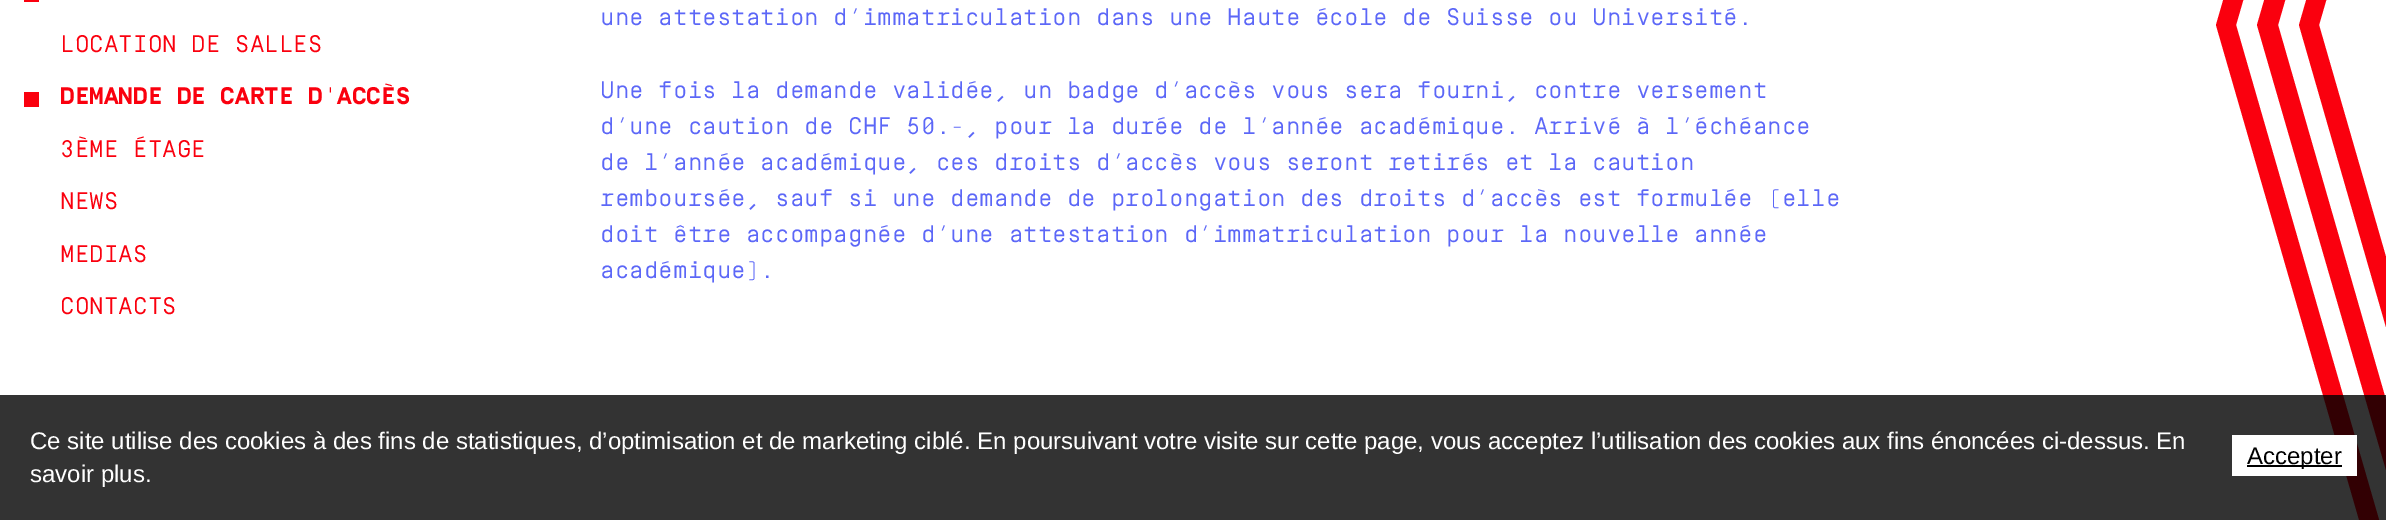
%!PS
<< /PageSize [2386 520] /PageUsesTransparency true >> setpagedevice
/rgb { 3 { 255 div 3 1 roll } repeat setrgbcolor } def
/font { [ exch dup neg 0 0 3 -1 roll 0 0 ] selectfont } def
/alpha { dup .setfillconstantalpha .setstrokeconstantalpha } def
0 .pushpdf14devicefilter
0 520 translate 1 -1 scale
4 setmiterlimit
255 255 255 rgb
0 0 2386 520 rectfill
250 0 14 rgb
24 0 15 2 rectfill
24 92 15 15 rectfill
2386 -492 moveto 2386 -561 lineto 2216 25 lineto 2386 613 lineto 2386 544 lineto 2236 25 lineto closepath fill
2278 25 moveto 2386 -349 lineto 2386 -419 lineto 2257 25 lineto 2386 470 lineto 2386 400 lineto closepath fill
2386 -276 moveto 2299 25 lineto 2386 327 lineto 2386 257 lineto 2319 25 lineto 2386 -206 lineto closepath fill
0.8 alpha
[
  [0 395 2386 125 0 0 0]
] { aload pop rgb rectfill } forall
1 alpha
[
  [2232 435 125 41 255 255 255]
  [2247 465 95 2 0 0 0]
] { aload pop rgb rectfill } forall
/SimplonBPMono-Regular 24 font
250 0 14 rgb
60 52 moveto (LOCATION DE SALLES) show
/SimplonBPMono-Bold 24 font
60 104 moveto (DEMANDE DE CARTE D'ACCÈS) show
/SimplonBPMono-Regular 24 font
[
  [(3ÈME ÉTAGE) 60 157]
  [(NEWS) 60 209]
  [(MEDIAS) 60 262]
  [(CONTACTS) 60 314]
] { aload pop moveto show } forall
92 103 247 rgb
[
  [(une attestation d’immatriculation dans une Haute école de Suisse ou Université.) 600 25]
  [(Une fois la demande validée, un badge d’accès vous sera fourni, contre versement) 600 98]
  [(d’une caution de CHF 50.-, pour la durée de l’année académique. Arrivé à l’échéance) 600 134]
  [(de l’année académique, ces droits d’accès vous seront retirés et la caution) 600 170]
  [(remboursée, sauf si une demande de prolongation des droits d’accès est formulée \(elle) 600 206]
  [(doit être accompagnée d’une attestation d’immatriculation pour la nouvelle année) 600 242]
  [(académique\).) 600 278]
] { aload pop moveto show } forall
/LiberationSans-Regular 24 font
255 255 255 rgb
30 449 moveto (Ce site utilise des cookies à des fins de statistiques, d’optimisation et de marketing ciblé. En poursuivant votre visite sur cette page, vous acceptez l’utilisation des cookies aux fins énoncées ci-dessus. En) show
30 482 moveto (savoir plus.) show
0 0 0 rgb
2247 464 moveto (Accepter) show
.poppdf14devicefilter showpage
